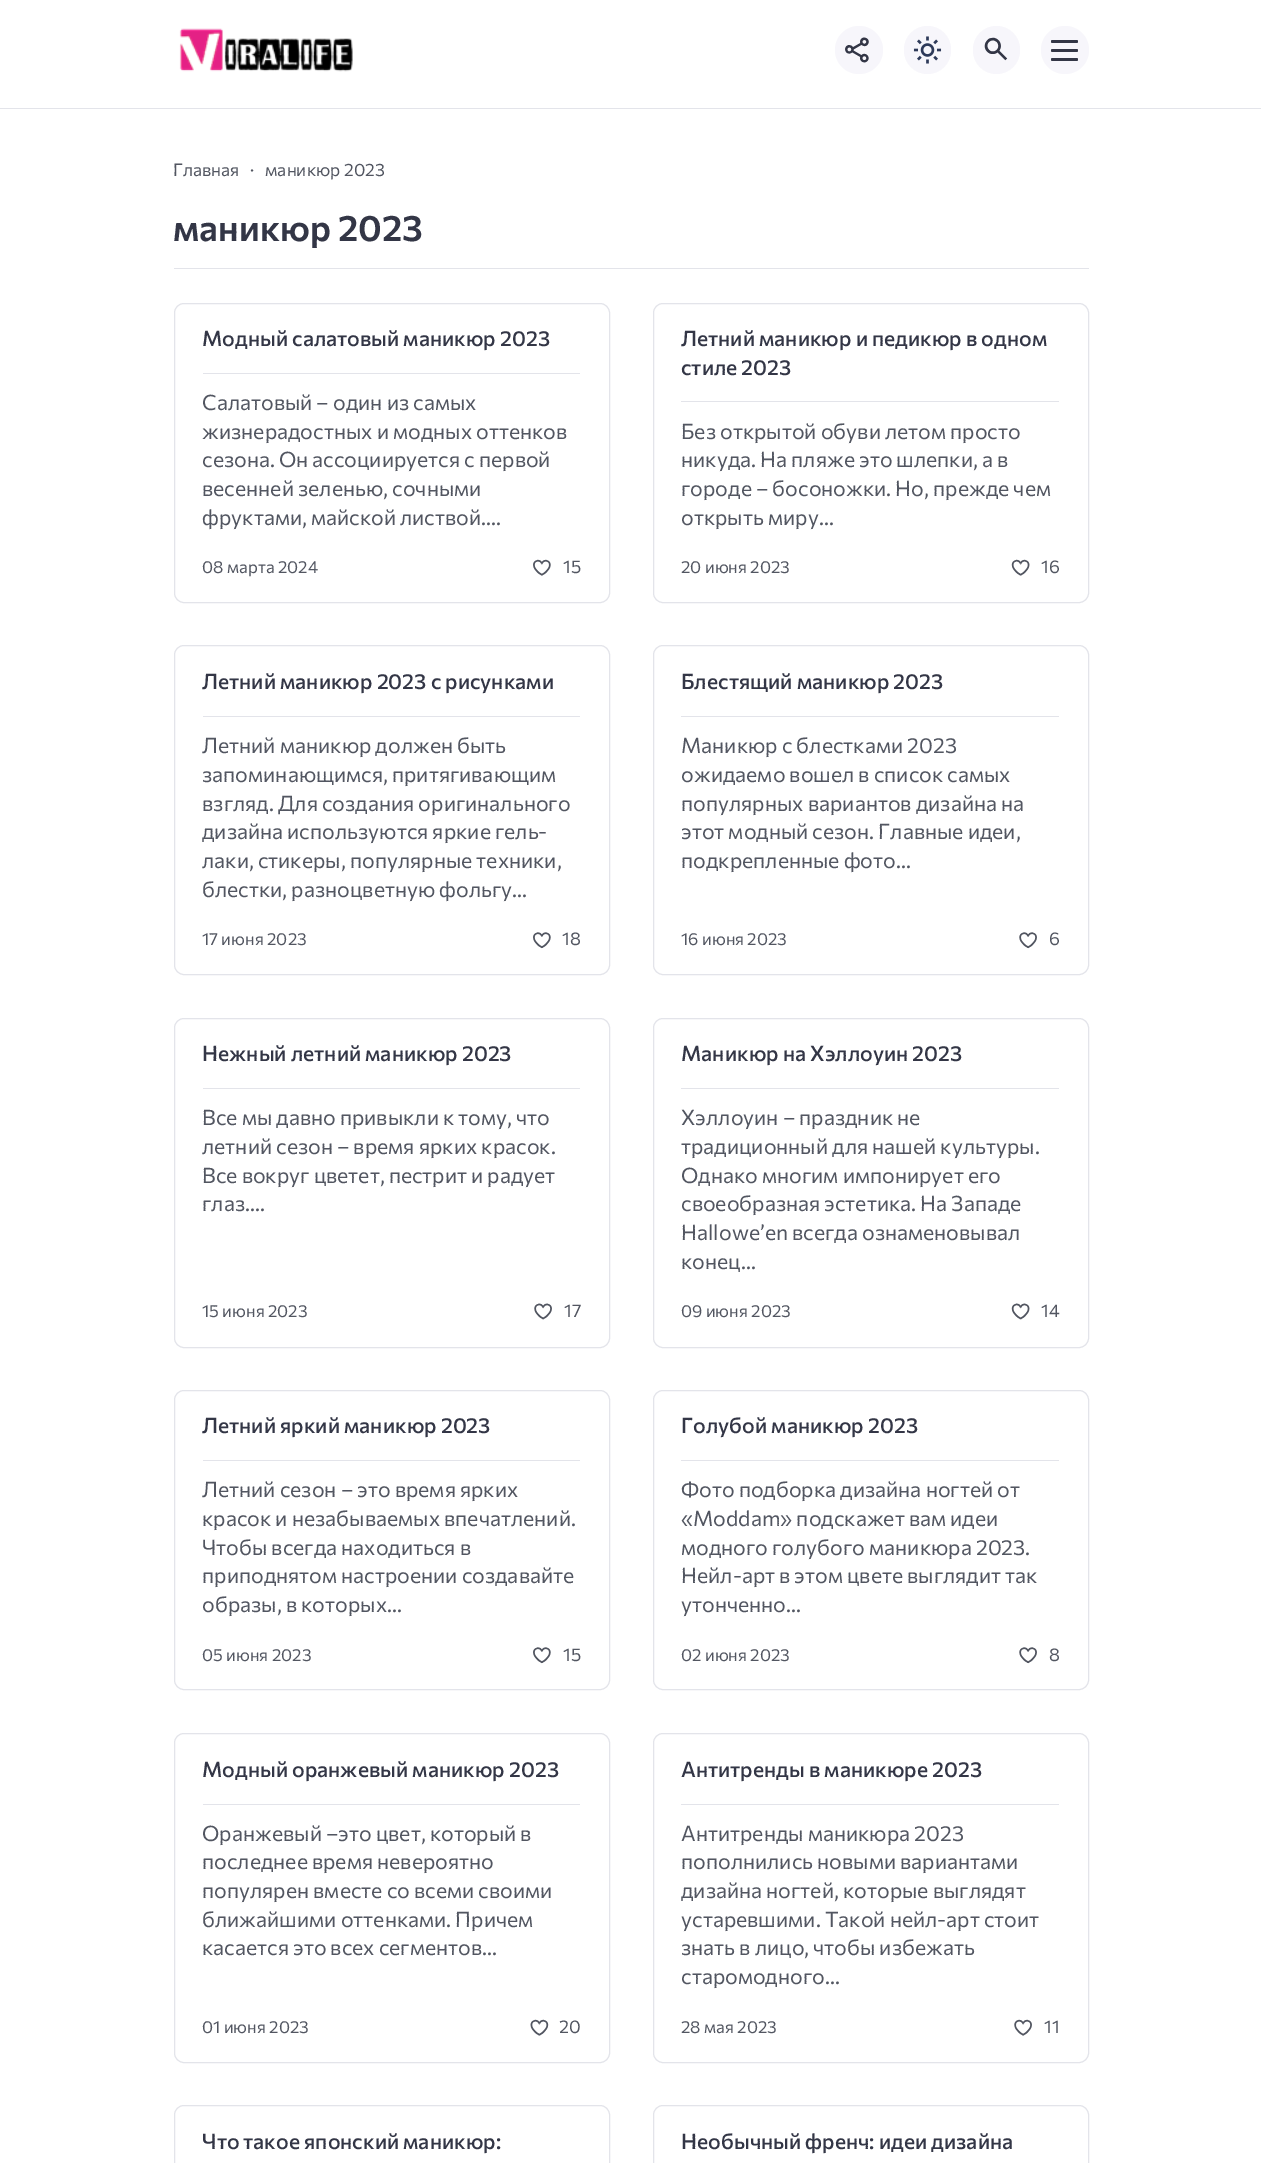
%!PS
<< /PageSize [1261 2163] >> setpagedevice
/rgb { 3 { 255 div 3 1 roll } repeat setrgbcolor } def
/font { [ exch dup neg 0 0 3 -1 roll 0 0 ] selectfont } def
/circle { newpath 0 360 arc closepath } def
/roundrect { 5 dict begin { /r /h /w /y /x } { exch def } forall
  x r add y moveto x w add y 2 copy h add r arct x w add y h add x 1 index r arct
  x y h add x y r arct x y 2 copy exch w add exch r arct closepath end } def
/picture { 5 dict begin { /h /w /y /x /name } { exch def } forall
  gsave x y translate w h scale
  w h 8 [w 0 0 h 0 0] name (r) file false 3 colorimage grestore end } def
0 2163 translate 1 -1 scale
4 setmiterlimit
255 255 255 rgb
0 0 1261 2163 rectfill
227 228 234 rgb
0 108 1261 1 rectfill
(img/1.rgb) 179 28 174 44 picture
247 246 251 rgb
859 50 24 circle fill
(img/2.rgb) 845 37 24 26 picture
904 26 47 48 23.5 roundrect fill
(img/3.rgb) 913 36 29 28 picture
973 26 47 48 23.5 roundrect fill
(img/4.rgb) 984 37 24 24 picture
1065 50 24 circle fill
51 54 70 rgb
1051 49 27 3 1.5 roundrect fill
1051 40 27 3 1.5 roundrect fill
1051 58 27 3 1.5 roundrect fill
227 228 234 rgb
174 268 915 1 rectfill
174.5 303.5 435 299 9.5 roundrect stroke
203 373 377 1 rectfill
(img/5.rgb) 533 559 18 17 picture
653.5 303.5 435 299 9.5 roundrect stroke
681 401 378 1 rectfill
(img/6.rgb) 1011 559 19 17 picture
174.5 645.5 435 329 9.5 roundrect stroke
203 716 377 1 rectfill
(img/7.rgb) 533 932 18 17 picture
653.5 645.5 435 329 9.5 roundrect stroke
681 716 378 1 rectfill
(img/8.rgb) 1019 932 18 17 picture
174.5 1018.5 435 329 9.5 roundrect stroke
203 1088 377 1 rectfill
(img/9.rgb) 534 1303 18 17 picture
653.5 1018.5 435 329 9.5 roundrect stroke
681 1088 378 1 rectfill
(img/10.rgb) 1011 1303 19 17 picture
174.5 1390.5 435 299 9.5 roundrect stroke
203 1460 377 1 rectfill
(img/7.rgb) 533 1647 18 17 picture
653.5 1390.5 435 299 9.5 roundrect stroke
681 1460 378 1 rectfill
(img/8.rgb) 1019 1647 18 17 picture
174.5 1733.5 435 329 9.5 roundrect stroke
203 1804 377 1 rectfill
(img/11.rgb) 530 2019 19 17 picture
653.5 1733.5 435 329 9.5 roundrect stroke
681 1804 378 1 rectfill
(img/12.rgb) 1014 2019 18 17 picture
174.5 2105.5 435 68 9.5 roundrect stroke
653.5 2105.5 435 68 9.5 roundrect stroke
/Commissioner-Regular 17.5 font
82 86 97 rgb
[
  [(Главная) 173 176]
  [(·) 250 176]
  [(маникюр 2023) 265 176]
] { aload pop moveto show } forall
/Commissioner-SemiBold 36 font
51 54 70 rgb
173 241 moveto (маникюр 2023) show
/Commissioner-Medium 21.25 font
202 346 moveto (Модный салатовый маникюр 2023) show
/Commissioner-Regular 21.25 font
82 86 97 rgb
[
  [(Салатовый – один из самых) 202 410]
  [(жизнерадостных и модных оттенков) 202 439]
  [(сезона. Он ассоциируется с первой) 202 467]
  [(весенней зеленью, сочными) 202 496]
  [(фруктами, майской листвой....) 202 525]
] { aload pop moveto show } forall
/Commissioner-Regular 17 font
202 573 moveto (08 марта 2024) show
/Commissioner-Regular 18 font
563 573 moveto (15) show
/Commissioner-Medium 21.25 font
51 54 70 rgb
681 346 moveto (Летний маникюр и педикюр в одном) show
681 375 moveto (стиле 2023) show
/Commissioner-Regular 21.25 font
82 86 97 rgb
[
  [(Без открытой обуви летом просто) 681 439]
  [(никуда. На пляже это шлепки, а в) 681 467]
  [(городе – босоножки. Но, прежде чем) 681 496]
  [(открыть миру...) 681 525]
] { aload pop moveto show } forall
/Commissioner-Regular 17 font
681 573 moveto (20 июня 2023) show
/Commissioner-Regular 18 font
1041 573 moveto (16) show
/Commissioner-Medium 21.25 font
51 54 70 rgb
202 689 moveto (Летний маникюр 2023 с рисунками) show
/Commissioner-Regular 21.25 font
82 86 97 rgb
[
  [(Летний маникюр должен быть) 202 753]
  [(запоминающимся, притягивающим) 202 782]
  [(взгляд. Для создания оригинального) 202 811]
  [(дизайна используются яркие гель-) 202 839]
  [(лаки, стикеры, популярные техники,) 202 868]
  [(блестки, разноцветную фольгу...) 202 897]
] { aload pop moveto show } forall
/Commissioner-Regular 17 font
202 945 moveto (17 июня 2023) show
/Commissioner-Regular 18 font
562 945 moveto (18) show
/Commissioner-Medium 21.25 font
51 54 70 rgb
681 689 moveto (Блестящий маникюр 2023) show
/Commissioner-Regular 21.25 font
82 86 97 rgb
[
  [(Маникюр с блестками 2023) 681 753]
  [(ожидаемо вошел в список самых) 681 782]
  [(популярных вариантов дизайна на) 681 811]
  [(этот модный сезон. Главные идеи,) 681 839]
  [(подкрепленные фото...) 681 868]
] { aload pop moveto show } forall
/Commissioner-Regular 17 font
681 945 moveto (16 июня 2023) show
/Commissioner-Regular 18 font
1049 945 moveto (6) show
/Commissioner-Medium 21.25 font
51 54 70 rgb
202 1061 moveto (Нежный летний маникюр 2023) show
/Commissioner-Regular 21.25 font
82 86 97 rgb
[
  [(Все мы давно привыкли к тому, что) 202 1125]
  [(летний сезон – время ярких красок.) 202 1154]
  [(Все вокруг цветет, пестрит и радует) 202 1183]
  [(глаз....) 202 1211]
] { aload pop moveto show } forall
/Commissioner-Regular 17 font
202 1317 moveto (15 июня 2023) show
/Commissioner-Regular 18 font
564 1317 moveto (17) show
/Commissioner-Medium 21.25 font
51 54 70 rgb
681 1061 moveto (Маникюр на Хэллоуин 2023) show
/Commissioner-Regular 21.25 font
82 86 97 rgb
[
  [(Хэллоуин – праздник не) 681 1125]
  [(традиционный для нашей культуры.) 681 1154]
  [(Однако многим импонирует его) 681 1183]
  [(своеобразная эстетика. На Западе) 681 1211]
  [(Hallowe’en всегда ознаменовывал) 681 1240]
  [(конец...) 681 1269]
] { aload pop moveto show } forall
/Commissioner-Regular 17 font
681 1317 moveto (09 июня 2023) show
/Commissioner-Regular 18 font
1041 1317 moveto (14) show
/Commissioner-Medium 21.25 font
51 54 70 rgb
202 1433 moveto (Летний яркий маникюр 2023) show
/Commissioner-Regular 21.25 font
82 86 97 rgb
[
  [(Летний сезон – это время ярких) 202 1497]
  [(красок и незабываемых впечатлений.) 202 1526]
  [(Чтобы всегда находиться в) 202 1555]
  [(приподнятом настроении создавайте) 202 1583]
  [(образы, в которых...) 202 1612]
] { aload pop moveto show } forall
/Commissioner-Regular 17 font
202 1661 moveto (05 июня 2023) show
/Commissioner-Regular 18 font
563 1661 moveto (15) show
/Commissioner-Medium 21.25 font
51 54 70 rgb
681 1433 moveto (Голубой маникюр 2023) show
/Commissioner-Regular 21.25 font
82 86 97 rgb
[
  [(Фото подборка дизайна ногтей от) 681 1497]
  [(«Moddam» подскажет вам идеи) 681 1526]
  [(модного голубого маникюра 2023.) 681 1555]
  [(Нейл-арт в этом цвете выглядит так) 681 1583]
  [(утонченно...) 681 1612]
] { aload pop moveto show } forall
/Commissioner-Regular 17 font
681 1661 moveto (02 июня 2023) show
/Commissioner-Regular 18 font
1049 1661 moveto (8) show
/Commissioner-Medium 21.25 font
51 54 70 rgb
202 1777 moveto (Модный оранжевый маникюр 2023) show
/Commissioner-Regular 21.25 font
82 86 97 rgb
[
  [(Оранжевый –это цвет, который в) 202 1841]
  [(последнее время невероятно) 202 1869]
  [(популярен вместе со всеми своими) 202 1898]
  [(ближайшими оттенками. Причем) 202 1927]
  [(касается это всех сегментов...) 202 1955]
] { aload pop moveto show } forall
/Commissioner-Regular 17 font
202 2033 moveto (01 июня 2023) show
/Commissioner-Regular 18 font
559 2033 moveto (20) show
/Commissioner-Medium 21.25 font
51 54 70 rgb
681 1777 moveto (Антитренды в маникюре 2023) show
/Commissioner-Regular 21.25 font
82 86 97 rgb
[
  [(Антитренды маникюра 2023) 681 1841]
  [(пополнились новыми вариантами) 681 1869]
  [(дизайна ногтей, которые выглядят) 681 1898]
  [(устаревшими. Такой нейл-арт стоит) 681 1927]
  [(знать в лицо, чтобы избежать) 681 1955]
  [(старомодного...) 681 1984]
] { aload pop moveto show } forall
/Commissioner-Regular 17 font
681 2033 moveto (28 мая 2023) show
/Commissioner-Regular 18 font
1044 2033 moveto (11) show
/Commissioner-Medium 21.25 font
51 54 70 rgb
202 2149 moveto (Что такое японский маникюр:) show
681 2149 moveto (Необычный френч: идеи дизайна) show
showpage
